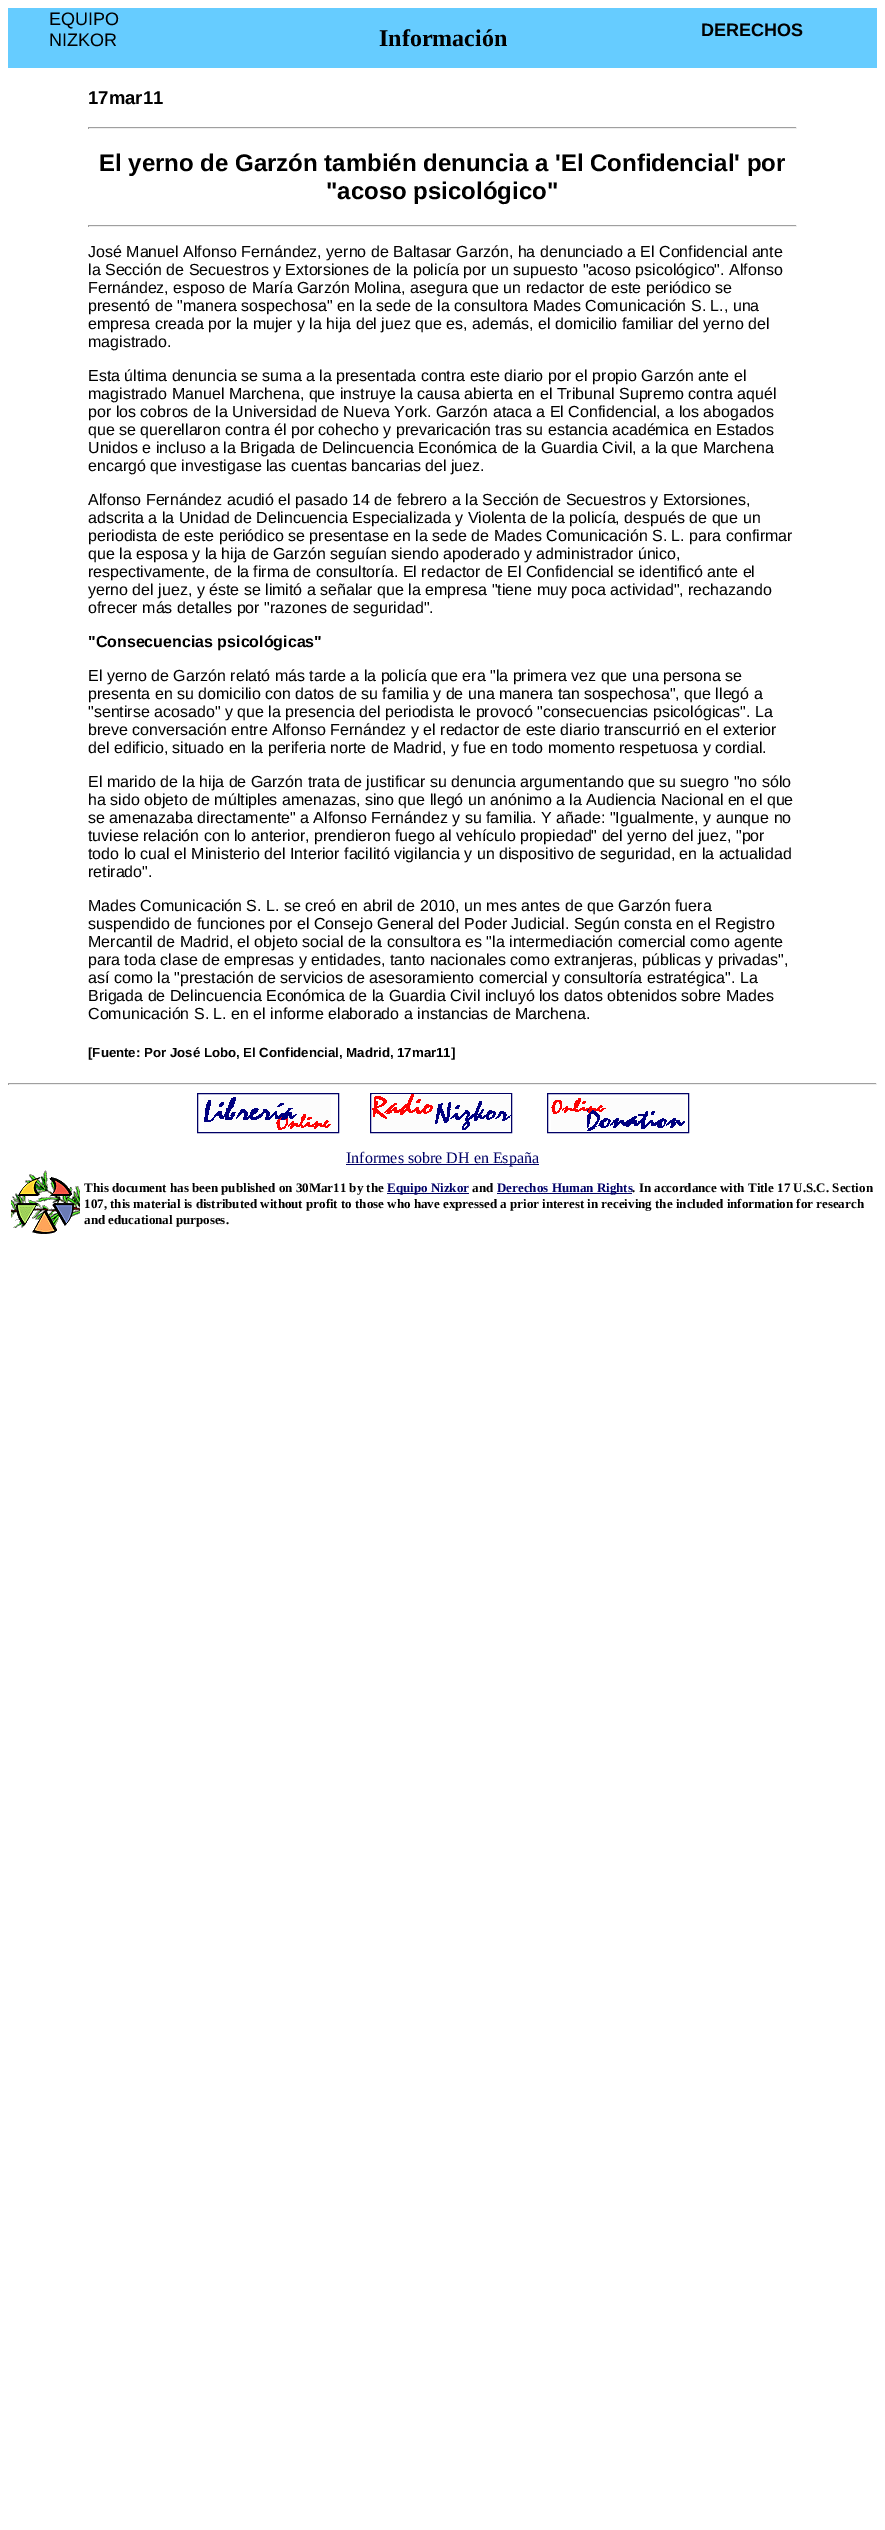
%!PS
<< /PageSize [885 2530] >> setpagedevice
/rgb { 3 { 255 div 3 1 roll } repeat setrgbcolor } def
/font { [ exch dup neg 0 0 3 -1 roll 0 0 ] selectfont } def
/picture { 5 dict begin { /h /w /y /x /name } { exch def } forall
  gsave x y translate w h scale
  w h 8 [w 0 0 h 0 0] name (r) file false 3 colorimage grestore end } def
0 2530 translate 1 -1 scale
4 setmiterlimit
255 255 255 rgb
0 0 885 2530 rectfill
[
  [8 8 869 60 102 204 255]
  [88 127 709 1 159 159 159]
  [796 127 1 2 238 238 238]
  [88 128 709 1 238 238 238]
  [88 127 1 2 159 159 159]
  [88 225 709 1 159 159 159]
  [796 225 1 2 238 238 238]
  [88 226 709 1 238 238 238]
  [88 225 1 2 159 159 159]
  [8 1083 869 1 159 159 159]
  [876 1083 1 2 238 238 238]
  [8 1084 869 1 238 238 238]
  [8 1083 1 2 159 159 159]
] { aload pop rgb rectfill } forall
0 0 102 rgb
197.5 1093.5 141 39 rectstroke
370.5 1093.5 141 39 rectstroke
547.5 1093.5 141 39 rectstroke
(img/1.rgb) 204 1097 127 33 picture
(img/2.rgb) 372 1094 139 36 picture
(img/3.rgb) 551 1098 134 33 picture
346 1164 193 1 rectfill
(img/4.rgb) 11 1170 69 64 picture
387 1193 82 1 rectfill
497 1193 135 1 rectfill
/LiberationSans-Regular 18 font
0 0 0 rgb
49 25 moveto (EQUIPO) show
49 46 moveto (NIZKOR) show
/LiberationSerif-Bold 24 font
379 46 moveto (Información) show
/LiberationSans-Bold 18 font
701 36 moveto (DERECHOS) show
/LiberationSans-Bold 18.5 font
88 104 moveto (17mar11) show
/LiberationSans-Bold 24 font
99 171 moveto (El yerno de Garzón también denuncia a 'El Confidencial' por) show
326 199 moveto ("acoso psicológico") show
/LiberationSans-Regular 16 font
[
  [(José Manuel Alfonso Fernández, yerno de Baltasar Garzón, ha denunciado a El Confidencial ante) 88 257]
  [(la Sección de Secuestros y Extorsiones de la policía por un supuesto "acoso psicológico". Alfonso) 88 275]
  [(Fernández, esposo de María Garzón Molina, asegura que un redactor de este periódico se) 88 293]
  [(presentó de "manera sospechosa" en la sede de la consultora Mades Comunicación S. L., una) 88 311]
  [(empresa creada por la mujer y la hija del juez que es, además, el domicilio familiar del yerno del) 88 329]
  [(magistrado.) 88 347]
  [(Esta última denuncia se suma a la presentada contra este diario por el propio Garzón ante el) 88 381]
  [(magistrado Manuel Marchena, que instruye la causa abierta en el Tribunal Supremo contra aquél) 88 399]
  [(por los cobros de la Universidad de Nueva York. Garzón ataca a El Confidencial, a los abogados) 88 417]
  [(que se querellaron contra él por cohecho y prevaricación tras su estancia académica en Estados) 88 435]
  [(Unidos e incluso a la Brigada de Delincuencia Económica de la Guardia Civil, a la que Marchena) 88 453]
  [(encargó que investigase las cuentas bancarias del juez.) 88 471]
  [(Alfonso Fernández acudió el pasado 14 de febrero a la Sección de Secuestros y Extorsiones,) 88 505]
  [(adscrita a la Unidad de Delincuencia Especializada y Violenta de la policía, después de que un) 88 523]
  [(periodista de este periódico se presentase en la sede de Mades Comunicación S. L. para confirmar) 88 541]
  [(que la esposa y la hija de Garzón seguían siendo apoderado y administrador único,) 88 559]
  [(respectivamente, de la firma de consultoría. El redactor de El Confidencial se identificó ante el) 88 577]
  [(yerno del juez, y éste se limitó a señalar que la empresa "tiene muy poca actividad", rechazando) 88 595]
  [(ofrecer más detalles por "razones de seguridad".) 88 613]
] { aload pop moveto show } forall
/LiberationSans-Bold 16 font
88 647 moveto ("Consecuencias psicológicas") show
/LiberationSans-Regular 16 font
[
  [(El yerno de Garzón relató más tarde a la policía que era "la primera vez que una persona se) 88 681]
  [(presenta en su domicilio con datos de su familia y de una manera tan sospechosa", que llegó a) 88 699]
  [("sentirse acosado" y que la presencia del periodista le provocó "consecuencias psicológicas". La) 88 717]
  [(breve conversación entre Alfonso Fernández y el redactor de este diario transcurrió en el exterior) 88 735]
  [(del edificio, situado en la periferia norte de Madrid, y fue en todo momento respetuosa y cordial.) 88 753]
  [(El marido de la hija de Garzón trata de justificar su denuncia argumentando que su suegro "no sólo) 88 787]
  [(ha sido objeto de múltiples amenazas, sino que llegó un anónimo a la Audiencia Nacional en el que) 88 805]
  [(se amenazaba directamente" a Alfonso Fernández y su familia. Y añade: "Igualmente, y aunque no) 88 823]
  [(tuviese relación con lo anterior, prendieron fuego al vehículo propiedad" del yerno del juez, "por) 88 841]
  [(todo lo cual el Ministerio del Interior facilitó vigilancia y un dispositivo de seguridad, en la actualidad) 88 859]
  [(retirado".) 88 877]
  [(Mades Comunicación S. L. se creó en abril de 2010, un mes antes de que Garzón fuera) 88 911]
  [(suspendido de funciones por el Consejo General del Poder Judicial. Según consta en el Registro) 88 929]
  [(Mercantil de Madrid, el objeto social de la consultora es "la intermediación comercial como agente) 88 947]
  [(para toda clase de empresas y entidades, tanto nacionales como extranjeras, públicas y privadas",) 88 965]
  [(así como la "prestación de servicios de asesoramiento comercial y consultoría estratégica". La) 88 983]
  [(Brigada de Delincuencia Económica de la Guardia Civil incluyó los datos obtenidos sobre Mades) 88 1001]
  [(Comunicación S. L. en el informe elaborado a instancias de Marchena.) 88 1019]
] { aload pop moveto show } forall
/LiberationSans-Bold 13.25 font
88 1057 moveto ([Fuente: Por José Lobo, El Confidencial, Madrid, 17mar11]) show
/LiberationSerif-Regular 16 font
0 0 102 rgb
346 1163 moveto (Informes sobre DH en España) show
/LiberationSerif-Bold 13 font
0 0 0 rgb
84 1192 moveto (This document has been published on 30Mar11 by the) show
0 0 102 rgb
387 1192 moveto (Equipo Nizkor) show
0 0 0 rgb
472 1192 moveto (and) show
0 0 102 rgb
497 1192 moveto (Derechos Human Rights) show
0 0 0 rgb
[
  [(. In accordance with Title 17 U.S.C. Section) 632 1192]
  [(107, this material is distributed without profit to those who have expressed a prior interest in receiving the included information for research) 84 1208]
  [(and educational purposes.) 84 1224]
] { aload pop moveto show } forall
showpage
